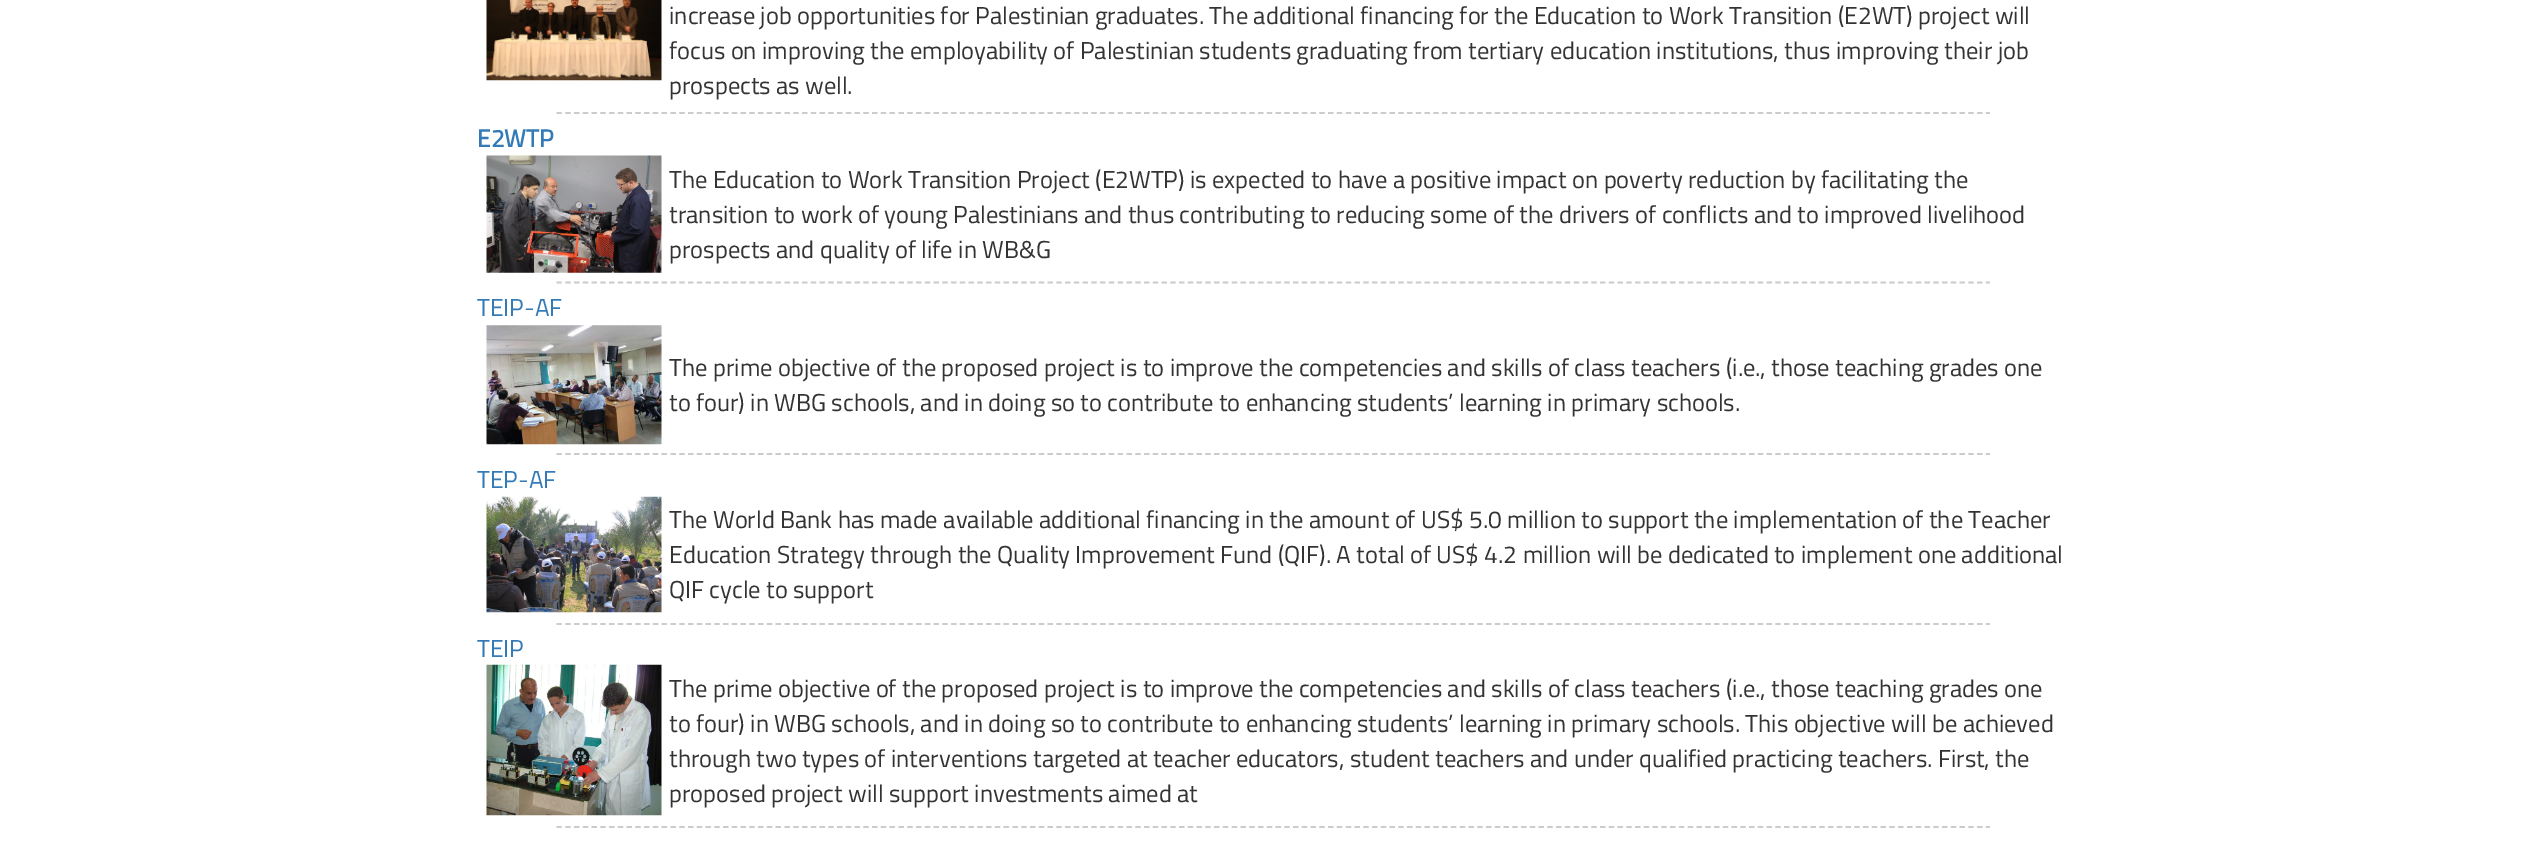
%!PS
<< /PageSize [2545 852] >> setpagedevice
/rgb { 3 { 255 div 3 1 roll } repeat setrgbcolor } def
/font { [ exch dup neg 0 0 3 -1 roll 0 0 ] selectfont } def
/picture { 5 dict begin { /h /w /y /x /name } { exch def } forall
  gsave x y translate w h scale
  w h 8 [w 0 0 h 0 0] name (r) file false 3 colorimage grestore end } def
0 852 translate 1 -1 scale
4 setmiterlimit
255 255 255 rgb
0 0 2545 852 rectfill
(img/1.rgb) 486 0 176 81 picture
204 204 204 rgb
1.8 setlinewidth
[5.25 3.52] 0 setdash
556.5 113 moveto 1990 113 lineto stroke
(img/2.rgb) 486 155 176 118 picture
556.5 282.5 moveto 1990 282.5 lineto stroke
(img/3.rgb) 486 325 176 120 picture
556.5 454 moveto 1990 454 lineto stroke
(img/4.rgb) 486 496 176 117 picture
556.5 624 moveto 1990 624 lineto stroke
(img/5.rgb) 486 664 176 152 picture
556.5 827 moveto 1990 827 lineto stroke
/TitilliumWeb-Regular 24.5 font
51 51 51 rgb
[
  [(increase job opportunities for Palestinian graduates. The additional financing for the Education to Work Transition \(E2WT\) project will) 669 24]
  [(focus on improving the employability of Palestinian students graduating from tertiary education institutions, thus improving their job) 669 59]
  [(prospects as well.) 669 94]
] { aload pop moveto show } forall
/TitilliumWeb-Bold 24.5 font
51 122 183 rgb
477 147 moveto (E2WTP) show
/TitilliumWeb-Regular 24.5 font
51 51 51 rgb
[
  [(The Education to Work Transition Project \(E2WTP\) is expected to have a positive impact on poverty reduction by facilitating the) 669 188]
  [(transition to work of young Palestinians and thus contributing to reducing some of the drivers of conflicts and to improved livelihood) 669 223]
  [(prospects and quality of life in WB&G) 669 258]
] { aload pop moveto show } forall
51 122 183 rgb
477 316 moveto (TEIP-AF) show
51 51 51 rgb
669 376 moveto (The prime objective of the proposed project is to improve the competencies and skills of class teachers \(i.e., those teaching grades one) show
669 411 moveto (to four\) in WBG schools, and in doing so to contribute to enhancing students’ learning in primary schools.) show
51 122 183 rgb
477 488 moveto (TEP-AF) show
51 51 51 rgb
[
  [(The World Bank has made available additional financing in the amount of US$ 5.0 million to support the implementation of the Teacher) 669 528]
  [(Education Strategy through the Quality Improvement Fund \(QIF\). A total of US$ 4.2 million will be dedicated to implement one additional) 669 563]
  [(QIF cycle to support) 669 598]
] { aload pop moveto show } forall
51 122 183 rgb
477 657 moveto (TEIP) show
51 51 51 rgb
[
  [(The prime objective of the proposed project is to improve the competencies and skills of class teachers \(i.e., those teaching grades one) 669 697]
  [(to four\) in WBG schools, and in doing so to contribute to enhancing students’ learning in primary schools. This objective will be achieved) 669 732]
  [(through two types of interventions targeted at teacher educators, student teachers and under qualified practicing teachers. First, the) 669 767]
  [(proposed project will support investments aimed at) 669 802]
] { aload pop moveto show } forall
showpage
